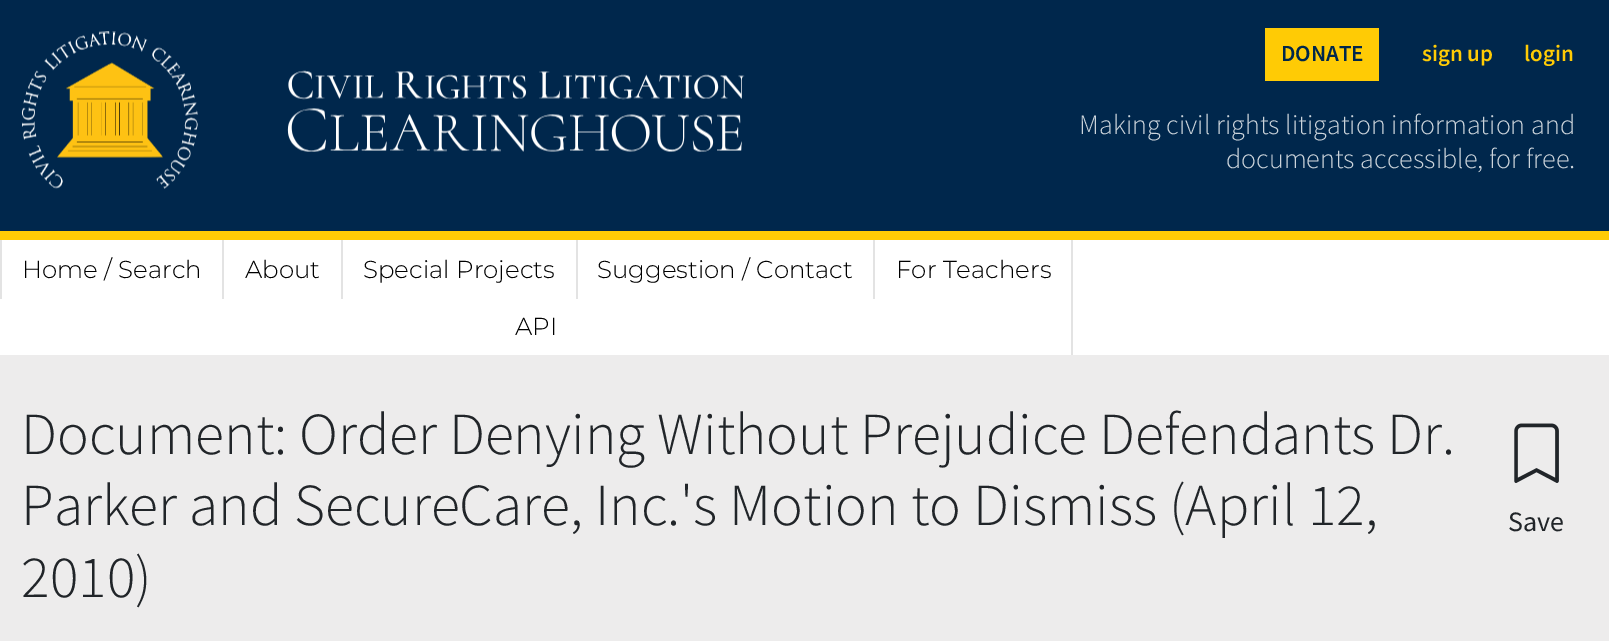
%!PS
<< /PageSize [1609 641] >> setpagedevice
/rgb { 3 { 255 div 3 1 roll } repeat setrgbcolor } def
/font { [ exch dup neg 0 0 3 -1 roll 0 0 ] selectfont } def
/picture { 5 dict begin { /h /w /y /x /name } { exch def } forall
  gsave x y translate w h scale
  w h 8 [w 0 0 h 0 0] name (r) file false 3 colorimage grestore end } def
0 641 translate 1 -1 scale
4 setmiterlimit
237 236 236 rgb
0 0 1609 641 rectfill
0 39 76 rgb
0 0 1609 231 rectfill
255 203 5 rgb
0 231 1609 9 rectfill
(img/1.rgb) 21 31 177 158 picture
(img/2.rgb) 287 70 458 82 picture
[
  [1265 28 114 53 255 203 5]
  [0 240 1609 115 255 255 255]
  [222 240 2 59 227 227 227]
  [0 240 2 59 227 227 227]
  [341 240 2 59 227 227 227]
  [576 240 2 59 227 227 227]
  [873 240 2 59 227 227 227]
  [1071 240 2 115 227 227 227]
] { aload pop rgb rectfill } forall
(img/3.rgb) 1514 423 45 60 picture
/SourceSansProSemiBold-SemiBold 23 font
0 39 76 rgb
1281 61 moveto (DONATE) show
255 203 5 rgb
1422 61 moveto (sign up) show
1524 61 moveto (login) show
/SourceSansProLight-Light 28 font
204 212 219 rgb
1079 134 moveto (Making civil rights litigation information and) show
1226 168 moveto (documents accessible, for free.) show
/Montserrat-Light 24.5 font
0 0 0 rgb
[
  [(Home / Search) 22 278]
  [(About) 245 278]
  [(Special Projects) 363 278]
  [(Suggestion / Contact) 597 278]
  [(For Teachers) 896 278]
  [(API) 515 335]
] { aload pop moveto show } forall
/SourceSansProLight-Light 59.5 font
33 37 41 rgb
[
  [(Document: Order Denying Without Prejudice Defendants Dr.) 21 454]
  [(Parker and SecureCare, Inc.'s Motion to Dismiss \(April 12,) 21 525]
  [(2010\)) 21 597]
] { aload pop moveto show } forall
/SourceSansPro-Regular 28 font
1508 531 moveto (Save) show
showpage
